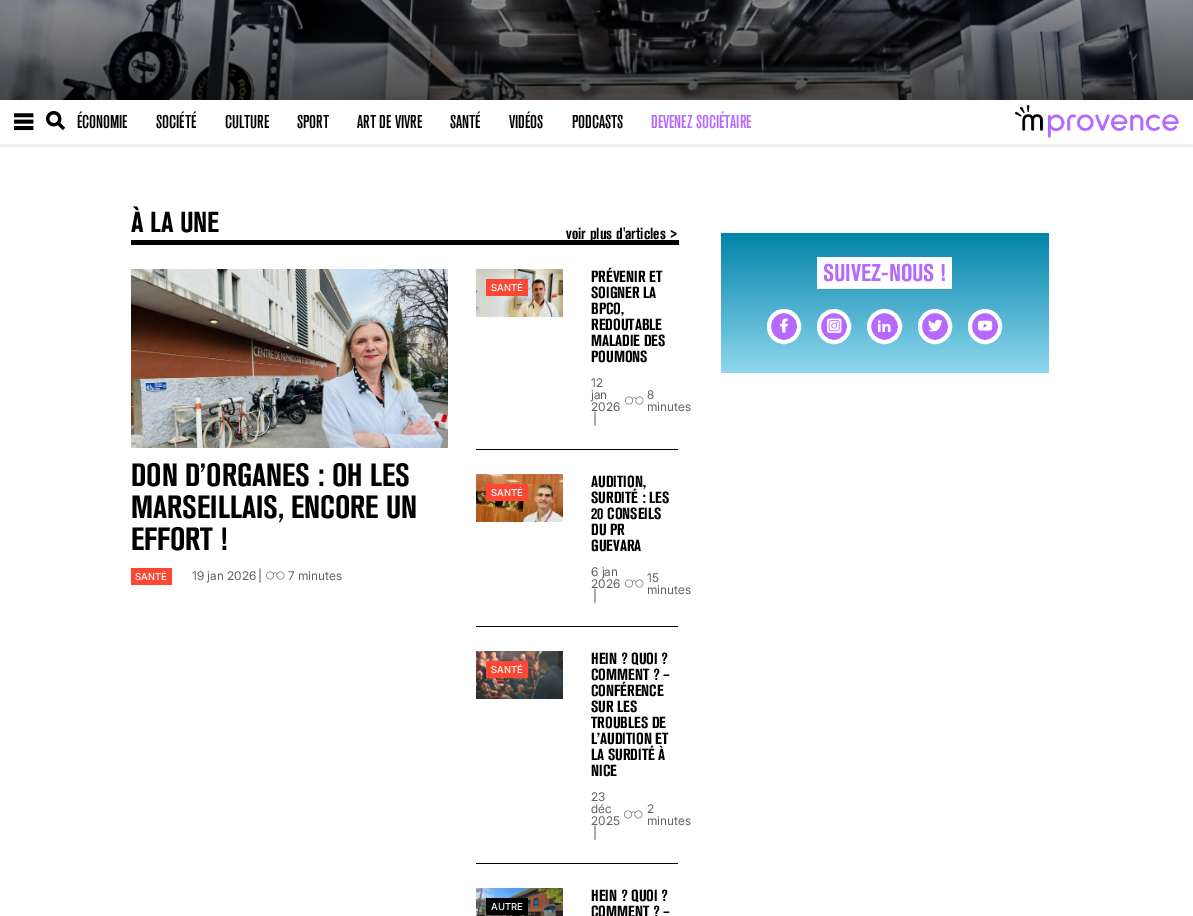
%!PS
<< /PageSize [1193 916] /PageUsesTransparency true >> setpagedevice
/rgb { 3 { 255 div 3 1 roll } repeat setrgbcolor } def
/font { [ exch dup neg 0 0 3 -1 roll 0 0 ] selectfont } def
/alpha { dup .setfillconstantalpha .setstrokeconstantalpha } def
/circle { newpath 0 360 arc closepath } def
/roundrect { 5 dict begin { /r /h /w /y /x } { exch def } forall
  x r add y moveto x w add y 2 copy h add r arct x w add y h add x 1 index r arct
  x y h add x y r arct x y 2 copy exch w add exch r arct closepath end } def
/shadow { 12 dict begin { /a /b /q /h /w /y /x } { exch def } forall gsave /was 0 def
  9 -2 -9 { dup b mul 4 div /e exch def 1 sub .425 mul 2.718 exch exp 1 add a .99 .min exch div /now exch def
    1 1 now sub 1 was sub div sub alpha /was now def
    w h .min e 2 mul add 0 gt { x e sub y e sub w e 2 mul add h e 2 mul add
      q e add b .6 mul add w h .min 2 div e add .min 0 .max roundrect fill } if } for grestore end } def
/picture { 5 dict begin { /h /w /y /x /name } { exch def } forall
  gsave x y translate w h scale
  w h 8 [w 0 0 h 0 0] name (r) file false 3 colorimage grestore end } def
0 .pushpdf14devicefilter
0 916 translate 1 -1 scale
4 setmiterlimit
255 255 255 rgb
0 0 1193 916 rectfill
gsave
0 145 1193 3 rectclip
0 0 0 rgb
0 100 1193 45 0 2.5 0.16 shadow
grestore
(img/1.rgb) 0 0 1193 100 picture
245 245 245 rgb
0 144 1193 1 rectfill
(img/2.rgb) 14 113 20 18 picture
(img/3.rgb) 46 111 20 20 picture
(img/4.rgb) 1015 105 164 33 picture
0 0 0 rgb
131 240 548 5 rectfill
(img/5.rgb) 131 269 317 179 picture
252 71 51 rgb
131 568 41 17 rectfill
(img/6.rgb) 266 571 19 9 picture
0 0 0 rgb
476 449 202 1 rectfill
(img/7.rgb) 476 269 87 48 picture
252 71 51 rgb
486 279 42 17 rectfill
(img/6.rgb) 625 396 19 9 picture
0 0 0 rgb
476 626 202 1 rectfill
(img/8.rgb) 476 474 87 48 picture
252 71 51 rgb
486 484 42 17 rectfill
(img/6.rgb) 625 579 19 9 picture
0 0 0 rgb
476 863 202 1 rectfill
(img/9.rgb) 476 651 87 48 picture
252 71 51 rgb
486 661 42 17 rectfill
(img/6.rgb) 624 810 19 9 picture
(img/10.rgb) 476 888 87 28 picture
0 0 0 rgb
486 898 42 17 rectfill
gsave 721 233 moveto 1049 233 lineto 1049 373 lineto 721 373 lineto closepath clip newpath
<< /ShadingType 2 /ColorSpace /DeviceRGB /Coords [885 233 885 373] /Extend [true true] /Function << /FunctionType 2 /Domain [0 1] /C0 [0.004 0.518 0.667] /C1 [0.561 0.843 0.929] /N 1 >> >> shfill grestore
255 255 255 rgb
817 257 135 32 rectfill
181 105 255 rgb
769 311 30 31 15 roundrect gsave fill grestore
255 255 255 rgb
4 setlinewidth
stroke
(img/11.rgb) 780 318 9 15 picture
181 105 255 rgb
819 311 30 31 15 roundrect gsave fill grestore
255 255 255 rgb
stroke
(img/12.rgb) 827 318 15 15 picture
181 105 255 rgb
884.5 326.5 15.5 circle gsave fill grestore
255 255 255 rgb
stroke
(img/13.rgb) 877 320 14 12 picture
181 105 255 rgb
920 311 30 31 15 roundrect gsave fill grestore
255 255 255 rgb
stroke
(img/14.rgb) 928 319 15 13 picture
181 105 255 rgb
970 311 30 31 15 roundrect gsave fill grestore
255 255 255 rgb
stroke
(img/15.rgb) 978 320 15 11 picture
/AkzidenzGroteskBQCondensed-Medium 18.5 font
0 0 0 rgb
[
  [(ÉCONOMIE) 77 128]
  [(SOCIÉTÉ) 156 128]
  [(CULTURE) 225 128]
  [(SPORT) 297 128]
  [(ART DE VIVRE) 357 128]
  [(SANTÉ) 450 128]
  [(VIDÉOS) 509 128]
  [(PODCASTS) 572 128]
] { aload pop moveto show } forall
181 105 255 rgb
651 128 moveto (DEVENEZ SOCIÉTAIRE) show
/AkzidenzGroteskBQCondensed-Bold 28.5 font
0 0 0 rgb
131 232 moveto (À LA UNE) show
/AkzidenzGroteskBQCondensed-Bold 32 font
[
  [(DON D’ORGANES : OH LES) 131 486]
  [(MARSEILLAIS, ENCORE UN) 131 518]
  [(EFFORT !) 131 550]
] { aload pop moveto show } forall
/Inter-Medium 9.5 font
255 255 255 rgb
135 580 moveto (SANTÉ) show
/Inter-Regular 12 font
95 95 95 rgb
[
  [(19 jan 2026) 192 580]
  [(|) 258 580]
  [(7 minutes) 288 580]
] { aload pop moveto show } forall
/AkzidenzGroteskBQCondensed-Bold 16 font
0 0 0 rgb
[
  [(voir plus d'articles >) 566 239]
  [(PRÉVENIR ET) 591 282]
  [(SOIGNER LA) 591 298]
  [(BPCO,) 591 314]
  [(REDOUTABLE) 591 330]
  [(MALADIE DES) 591 346]
  [(POUMONS) 591 362]
] { aload pop moveto show } forall
/Inter-Medium 9.5 font
255 255 255 rgb
491 291 moveto (SANTÉ) show
/Inter-Regular 12 font
95 95 95 rgb
[
  [(12) 591 387]
  [(jan) 591 399]
  [(2026) 591 411]
  [(|) 593 423]
  [(8) 647 399]
  [(minutes) 647 411]
] { aload pop moveto show } forall
/AkzidenzGroteskBQCondensed-Bold 16 font
0 0 0 rgb
[
  [(AUDITION,) 591 487]
  [(SURDITÉ : LES) 591 503]
  [(20 CONSEILS) 591 519]
  [(DU PR) 591 535]
  [(GUEVARA) 591 551]
] { aload pop moveto show } forall
/Inter-Medium 9.5 font
255 255 255 rgb
491 496 moveto (SANTÉ) show
/Inter-Regular 12 font
95 95 95 rgb
[
  [(6 jan) 591 576]
  [(2026) 591 588]
  [(|) 593 600]
  [(15) 647 582]
  [(minutes) 647 594]
] { aload pop moveto show } forall
/AkzidenzGroteskBQCondensed-Bold 16 font
0 0 0 rgb
[
  [(HEIN ? QUOI ?) 591 664]
  [(COMMENT ? –) 591 680]
  [(CONFÉRENCE) 591 696]
  [(SUR LES) 591 712]
  [(TROUBLES DE) 591 728]
  [(L’AUDITION ET) 591 744]
  [(LA SURDITÉ À) 591 760]
  [(NICE) 591 776]
] { aload pop moveto show } forall
/Inter-Medium 9.5 font
255 255 255 rgb
491 673 moveto (SANTÉ) show
/Inter-Regular 12 font
95 95 95 rgb
[
  [(23) 591 801]
  [(déc) 591 813]
  [(2025) 591 825]
  [(|) 593 837]
  [(2) 647 813]
  [(minutes) 647 825]
] { aload pop moveto show } forall
/Inter-Medium 9.5 font
255 255 255 rgb
491 910 moveto (AUTRE) show
/AkzidenzGroteskBQCondensed-Bold 16 font
0 0 0 rgb
591 901 moveto (HEIN ? QUOI ?) show
591 917 moveto (COMMENT ? –) show
/AkzidenzGroteskBQCondensed-Bold 24 font
181 105 255 rgb
823 281 moveto (SUIVEZ-NOUS !) show
.poppdf14devicefilter showpage
